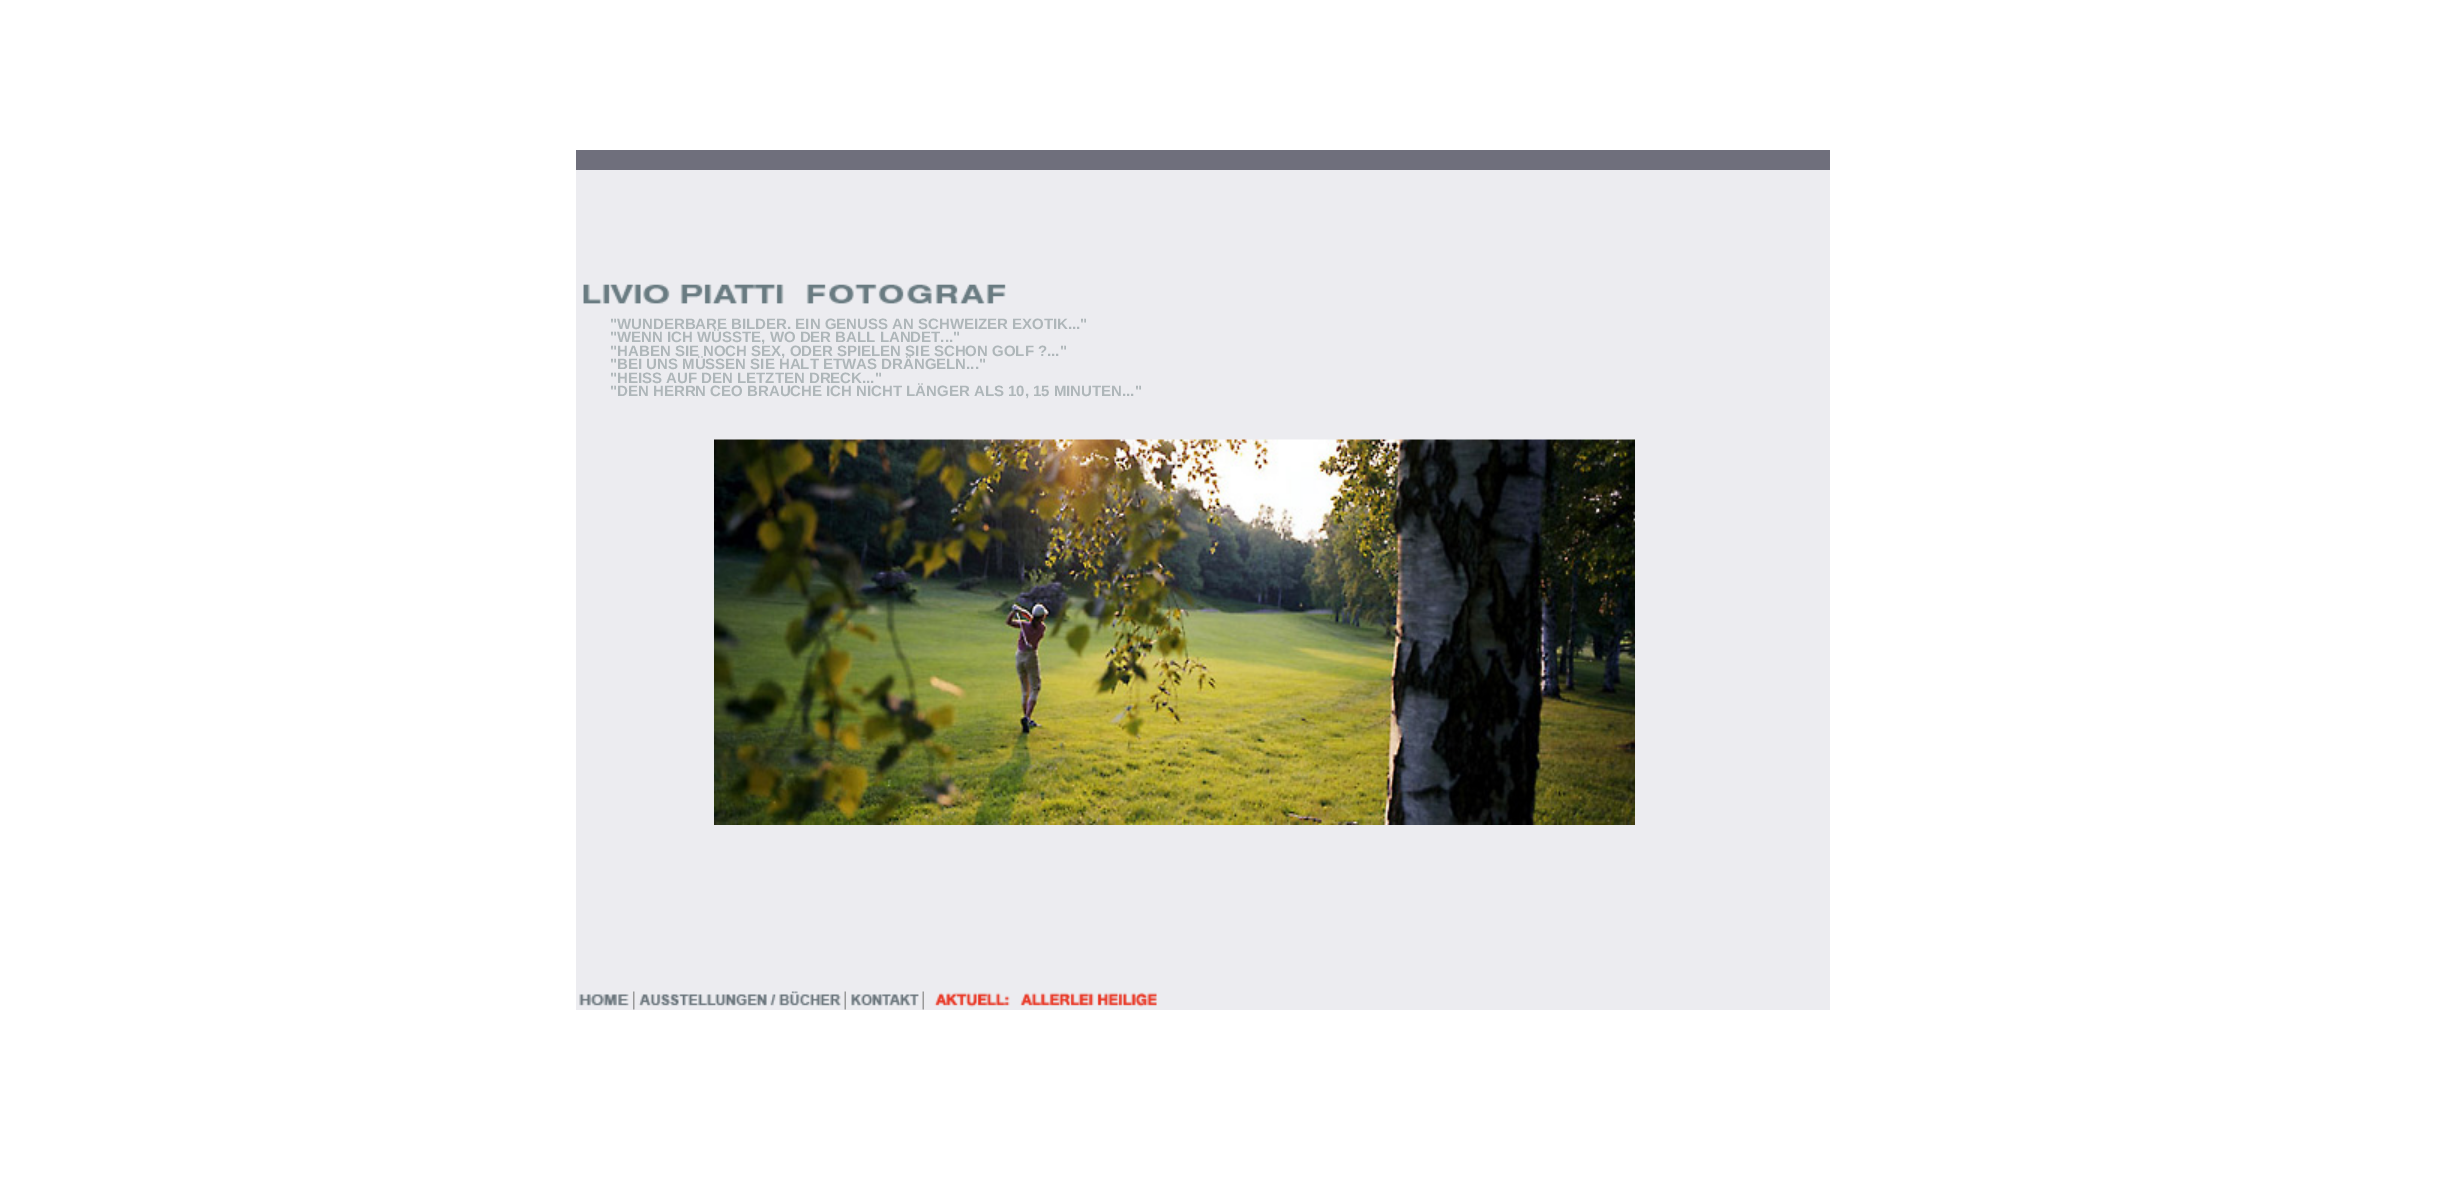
%!PS
<< /PageSize [2453 1204] >> setpagedevice
/rgb { 3 { 255 div 3 1 roll } repeat setrgbcolor } def
/font { [ exch dup neg 0 0 3 -1 roll 0 0 ] selectfont } def
/picture { 5 dict begin { /h /w /y /x /name } { exch def } forall
  gsave x y translate w h scale
  w h 8 [w 0 0 h 0 0] name (r) file false 3 colorimage grestore end } def
0 1204 translate 1 -1 scale
4 setmiterlimit
255 255 255 rgb
0 0 2453 1204 rectfill
236 236 240 rgb
576 170 1254 840 rectfill
111 111 124 rgb
576 150 1254 20 rectfill
(img/1.rgb) 583 284 423 20 picture
(img/2.rgb) 714 439 921 386 picture
(img/3.rgb) 579 994 50 12 picture
(img/4.rgb) 633 991 2 19 picture
(img/5.rgb) 638 991 203 15 picture
(img/6.rgb) 844 991 2 19 picture
(img/7.rgb) 851 994 68 12 picture
(img/6.rgb) 922 991 2 19 picture
(img/8.rgb) 934 992 223 15 picture
/LiberationSans-Bold 15 font
174 182 185 rgb
[
  [("WUNDERBARE BILDER. EIN GENUSS AN SCHWEIZER EXOTIK...") 610 329]
  [("WENN ICH WÜSSTE, WO DER BALL LANDET...") 610 342]
  [("HABEN SIE NOCH SEX, ODER SPIELEN SIE SCHON GOLF ?...") 610 356]
  [("BEI UNS MÜSSEN SIE HALT ETWAS DRÄNGELN...") 610 369]
  [("HEISS AUF DEN LETZTEN DRECK...") 610 383]
  [("DEN HERRN CEO BRAUCHE ICH NICHT LÄNGER ALS 10, 15 MINUTEN...") 610 396]
] { aload pop moveto show } forall
showpage
